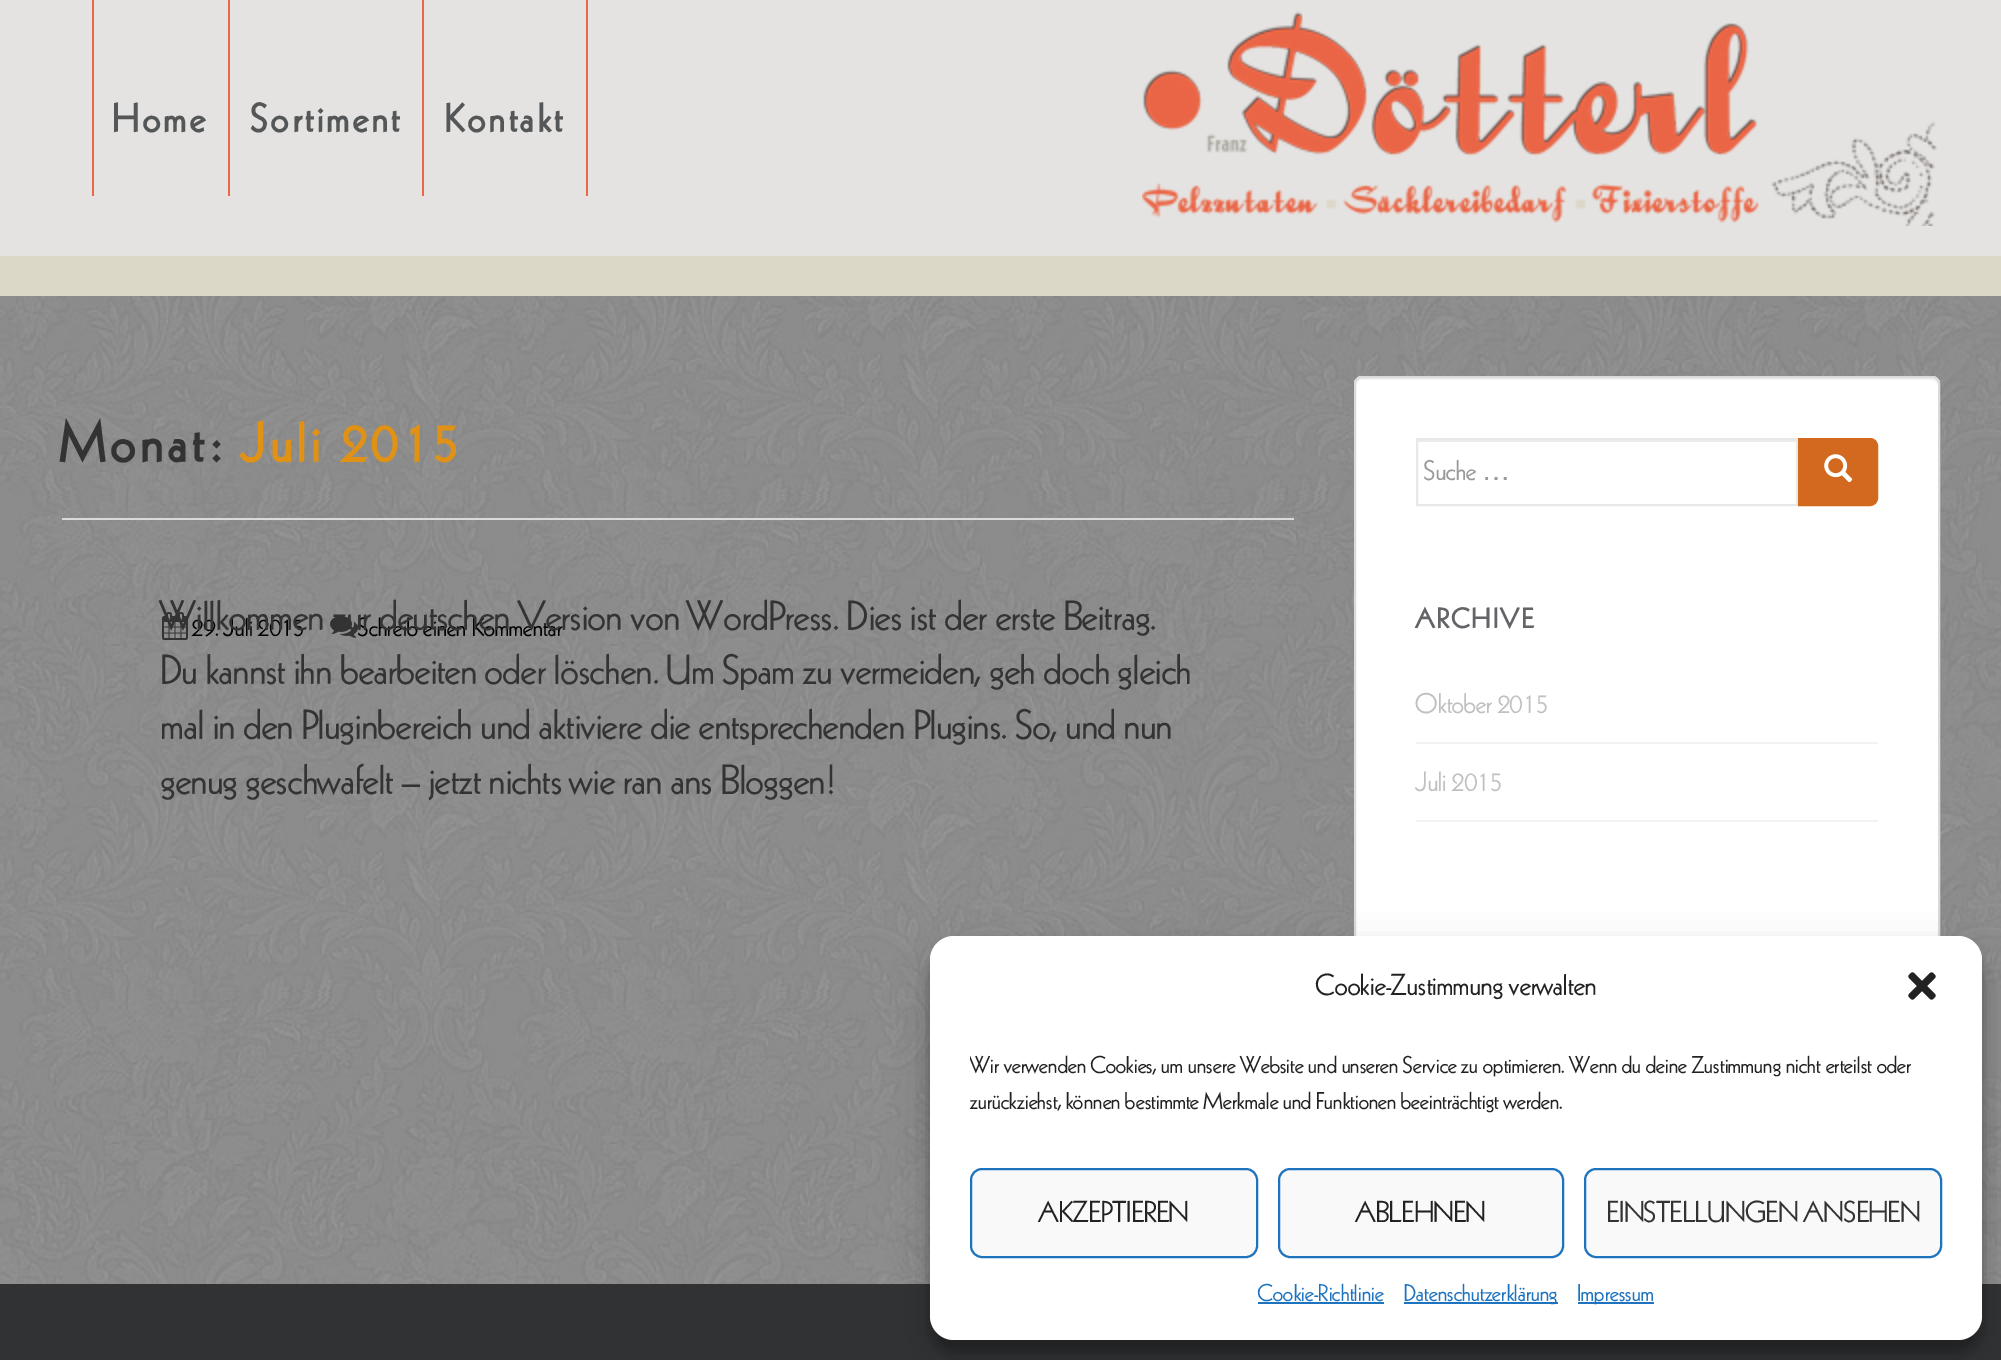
%!PS
<< /PageSize [2001 1360] /PageUsesTransparency true >> setpagedevice
/rgb { 3 { 255 div 3 1 roll } repeat setrgbcolor } def
/font { [ exch dup neg 0 0 3 -1 roll 0 0 ] selectfont } def
/alpha { dup .setfillconstantalpha .setstrokeconstantalpha } def
/roundrect { 5 dict begin { /r /h /w /y /x } { exch def } forall
  x r add y moveto x w add y 2 copy h add r arct x w add y h add x 1 index r arct
  x y h add x y r arct x y 2 copy exch w add exch r arct closepath end } def
/shadow { 12 dict begin { /a /b /q /h /w /y /x } { exch def } forall gsave /was 0 def
  9 -2 -9 { dup b mul 4 div /e exch def 1 sub .425 mul 2.718 exch exp 1 add a .99 .min exch div /now exch def
    1 1 now sub 1 was sub div sub alpha /was now def
    w h .min e 2 mul add 0 gt { x e sub y e sub w e 2 mul add h e 2 mul add
      q e add b .6 mul add w h .min 2 div e add .min 0 .max roundrect fill } if } for grestore end } def
/picture { 5 dict begin { /h /w /y /x /name } { exch def } forall
  gsave x y translate w h scale
  w h 8 [w 0 0 h 0 0] name (r) file false 3 colorimage grestore end } def
0 .pushpdf14devicefilter
0 1360 translate 1 -1 scale
4 setmiterlimit
255 255 255 rgb
0 0 2001 1360 rectfill
(img/1.rgb) 0 296 2001 988 picture
[
  [0 0 2001 256 228 227 225]
  [0 256 2001 40 220 216 199]
  [586 0 2 196 234 102 70]
  [92 0 2 196 234 102 70]
  [228 0 2 196 234 102 70]
  [422 0 2 196 234 102 70]
] { aload pop rgb rectfill } forall
(img/2.rgb) 1142 11 795 215 picture
218 218 218 rgb
62 518 1232 2 rectfill
(img/3.rgb) 162 612 26 28 picture
(img/4.rgb) 330 616 28 22 picture
255 255 255 rgb
1354 376 586 788 8 roundrect fill
242 242 242 rgb
1362 380 moveto 1932 380 lineto 1935 380 1938 383 1938 386 curveto 1938 382 1937 378 1932 378 curveto 1362 378 lineto 1357 378 1356 382 1356 386 curveto 1356 383 1359 380 1362 380 curveto closepath fill
218 218 218 rgb
2 setlinewidth
1355 377 584 786 7 roundrect stroke
236 236 236 rgb
1418 440 378 2 rectfill
232 232 232 rgb
1417 439 380 66 rectstroke
210 105 30 rgb
1799 439 moveto 1870 439 lineto 1874 439 1877 442 1877 446 curveto 1877 498 lineto 1877 502 1874 505 1870 505 curveto 1799 505 lineto closepath gsave fill grestore
stroke
(img/5.rgb) 1824 454 29 29 picture
[
  [1416 742 462 2 242 242 242]
  [1416 820 462 2 242 242 242]
  [0 1284 2001 76 49 50 51]
] { aload pop rgb rectfill } forall
0 0 0 rgb
930 948 1052 404 24 6 0.23 shadow
930 956 1052 404 24 20 0.19 shadow
255 255 255 rgb
930 936 1052 404 24 roundrect fill
(img/6.rgb) 1908 972 28 28 picture
249 249 249 rgb
971 1169 286 88 11 roundrect gsave fill grestore
30 115 190 rgb
stroke
249 249 249 rgb
1279 1169 284 88 11 roundrect gsave fill grestore
30 115 190 rgb
stroke
249 249 249 rgb
1585 1169 356 88 11 roundrect gsave fill grestore
30 115 190 rgb
stroke
[
  [1258 1302 126 2 30 115 190]
  [1404 1302 154 2 30 115 190]
  [1578 1302 76 2 30 115 190]
] { aload pop rgb rectfill } forall
/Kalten-Bold 40 font
85 86 87 rgb
113 132 moveto 4 0 (Home) ashow
251 132 moveto 4 0 (Sortiment) ashow
445 132 moveto 4 0 (Kontakt) ashow
/Kalten-Bold 56 font
51 51 51 rgb
61 462 moveto 5.5 0 (Monat:) ashow
225 145 19 rgb
242 462 moveto 5.5 0 (Juli 2015) ashow
/Kalten-Regular 42 font
51 51 51 rgb
[
  [(Du kannst ihn bearbeiten oder löschen. Um Spam zu vermeiden, geh doch gleich) 161 684]
  [(mal in den Pluginbereich und aktiviere die entsprechenden Plugins. So, und nun) 161 739]
  [(genug geschwafelt – jetzt nichts wie ran ans Bloggen!) 161 794]
] { aload pop moveto show } forall
/Kalten-Regular 26 font
0 0 0 rgb
192 636 moveto (29. Juli 2015) show
358 636 moveto (Schreib einen Kommentar) show
/Kalten-Regular 42 font
51 51 51 rgb
161 630 moveto (Willkommen zur deutschen Version von WordPress. Dies ist der erste Beitrag.) show
/Kalten-Regular 28 font
153 153 153 rgb
1424 480 moveto (Suche …) show
/Kalten-Bold 28 font
99 100 103 rgb
1416 628 moveto 2.75 0 (ARCHIVE) ashow
/Kalten-Regular 28 font
193 192 192 rgb
1416 713 moveto (Oktober 2015) show
1416 791 moveto (Juli 2015) show
/Kalten-Regular 30 font
34 34 34 rgb
1316 995 moveto (Cookie-Zustimmung verwalten) show
gsave
970 1046 972 82 rectclip
/Kalten-Regular 24 font
970 1073 moveto (Wir verwenden Cookies, um unsere Website und unseren Service zu optimieren. Wenn du deine Zustimmung nicht erteilst oder) show
grestore
/Kalten-Regular 24 font
970 1109 moveto (zurückziehst, können bestimmte Merkmale und Funktionen beeinträchtigt werden.) show
/Kalten-Regular 30 font
1039 1222 moveto (AKZEPTIEREN) show
1356 1222 moveto (ABLEHNEN) show
51 51 51 rgb
1607 1222 moveto (EINSTELLUNGEN ANSEHEN) show
/Kalten-Regular 24 font
30 115 190 rgb
[
  [(Cookie-Richtlinie) 1258 1301]
  [(Datenschutzerklärung) 1404 1301]
  [(Impressum) 1577 1301]
] { aload pop moveto show } forall
.poppdf14devicefilter showpage
